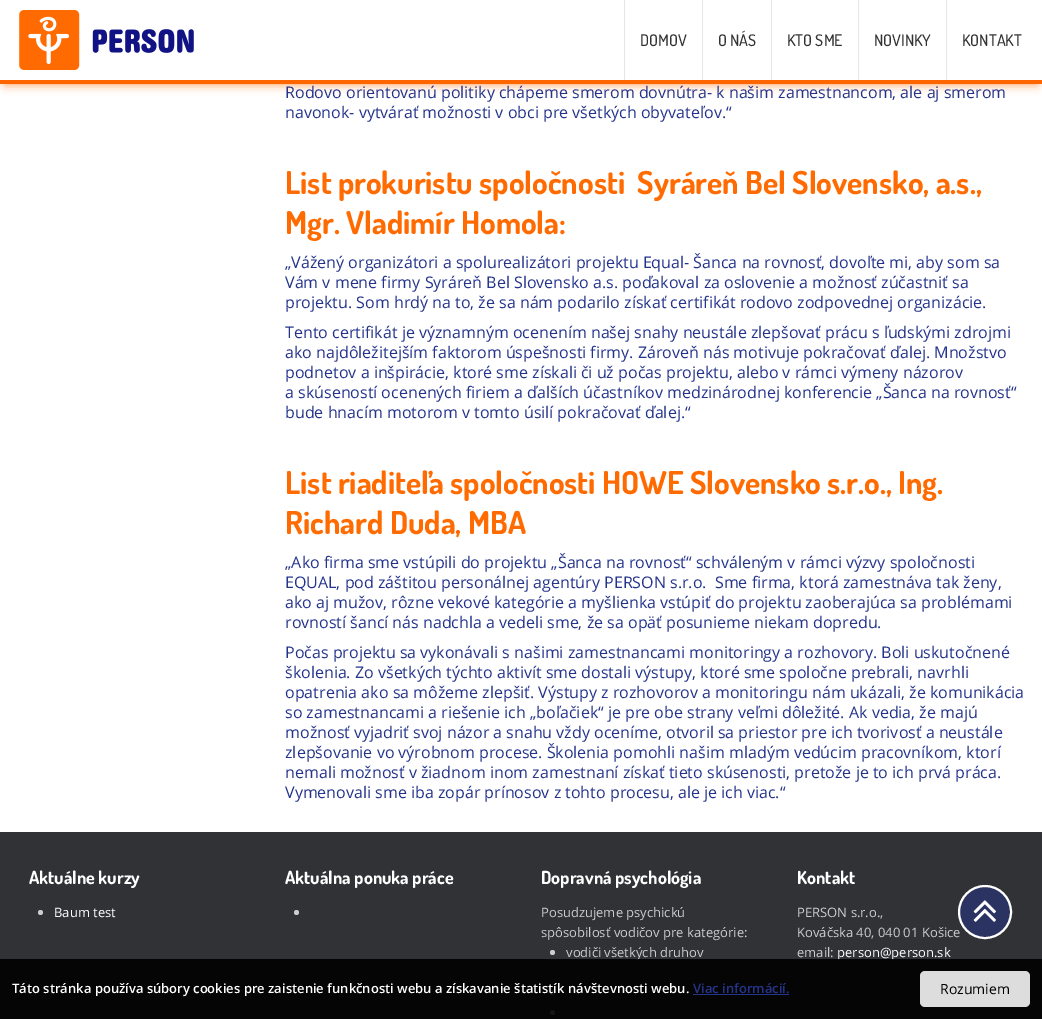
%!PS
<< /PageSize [1042 1019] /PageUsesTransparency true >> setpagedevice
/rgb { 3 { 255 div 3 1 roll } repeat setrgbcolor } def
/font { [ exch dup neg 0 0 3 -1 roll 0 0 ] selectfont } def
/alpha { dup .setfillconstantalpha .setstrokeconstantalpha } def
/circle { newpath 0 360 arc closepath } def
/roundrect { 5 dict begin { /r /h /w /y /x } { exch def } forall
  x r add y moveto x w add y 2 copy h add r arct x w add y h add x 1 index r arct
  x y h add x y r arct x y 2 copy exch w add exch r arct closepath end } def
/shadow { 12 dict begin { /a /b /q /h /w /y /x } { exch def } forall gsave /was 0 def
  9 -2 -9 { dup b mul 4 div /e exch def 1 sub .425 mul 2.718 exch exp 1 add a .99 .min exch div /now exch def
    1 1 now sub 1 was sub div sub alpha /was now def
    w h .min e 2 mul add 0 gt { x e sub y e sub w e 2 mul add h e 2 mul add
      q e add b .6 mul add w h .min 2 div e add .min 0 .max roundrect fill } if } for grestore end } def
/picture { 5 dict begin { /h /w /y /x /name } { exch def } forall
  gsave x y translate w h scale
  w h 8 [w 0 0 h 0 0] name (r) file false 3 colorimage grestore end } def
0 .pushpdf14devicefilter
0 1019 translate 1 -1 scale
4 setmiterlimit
255 255 255 rgb
0 0 1042 1019 rectfill
255 107 0 rgb
5 10 1032 74 0 5 0.75 shadow
255 255 255 rgb
0 0 1042 80 rectfill
255 102 0 rgb
0 80 1042 4 rectfill
(img/1.rgb) 19 10 175 60 picture
[
  [624 0 1 80 226 230 237]
  [702 0 1 80 226 230 237]
  [771 0 1 80 226 230 237]
  [858 0 1 80 226 230 237]
  [946 0 1 80 226 230 237]
  [0 832 1042 187 48 50 54]
] { aload pop rgb rectfill } forall
204 204 204 rgb
40.5 912.5 2.5 circle fill
296.5 912.5 2.5 circle fill
552.5 952.5 2.5 circle fill
552.5 992.5 2.5 circle fill
552.5 1012.5 2.5 circle fill
/Dosis-Medium 16 font
51 51 51 rgb
[
  [(DOMOV) 640 46]
  [(O NÁS) 718 46]
  [(KTO SME) 787 46]
  [(NOVINKY) 874 46]
  [(KONTAKT) 962 46]
] { aload pop moveto show } forall
/OpenSans-Regular 16 font
36 52 139 rgb
285 98 moveto (Rodovo orientovanú politiky chápeme smerom dovnútra- k našim zamestnancom, ale aj smerom) show
285 118 moveto (navonok- vytvárať možnosti v obci pre všetkých obyvateľov.“) show
/Dosis-Bold 31.5 font
255 107 0 rgb
285 194 moveto (List prokuristu spoločnosti  Syráreň Bel Slovensko, a.s.,) show
285 234 moveto (Mgr. Vladimír Homola:) show
/OpenSans-Regular 16 font
36 52 139 rgb
[
  [(„Vážený organizátori a spolurealizátori projektu Equal- Šanca na rovnosť, dovoľte mi, aby som sa) 285 268]
  [(Vám v mene firmy Syráreň Bel Slovensko a.s. poďakoval za oslovenie a možnosť zúčastniť sa) 285 288]
  [(projektu. Som hrdý na to, že sa nám podarilo získať certifikát rodovo zodpovednej organizácie.) 285 308]
  [(Tento certifikát je významným ocenením našej snahy neustále zlepšovať prácu s ľudskými zdrojmi) 285 338]
  [(ako najdôležitejším faktorom úspešnosti firmy. Zároveň nás motivuje pokračovať ďalej. Množstvo) 285 358]
  [(podnetov a inšpirácie, ktoré sme získali či už počas projektu, alebo v rámci výmeny názorov) 285 378]
  [(a skúseností ocenených firiem a ďalších účastníkov medzinárodnej konferencie „Šanca na rovnosť“) 285 398]
  [(bude hnacím motorom v tomto úsilí pokračovať ďalej.“) 285 418]
] { aload pop moveto show } forall
/Dosis-Bold 31.5 font
255 107 0 rgb
285 494 moveto (List riaditeľa spoločnosti HOWE Slovensko s.r.o., Ing.) show
285 534 moveto (Richard Duda, MBA) show
/OpenSans-Regular 16 font
36 52 139 rgb
[
  [(„Ako firma sme vstúpili do projektu „Šanca na rovnosť“ schváleným v rámci výzvy spoločnosti) 285 568]
  [(EQUAL, pod záštitou personálnej agentúry PERSON s.r.o.  Sme firma, ktorá zamestnáva tak ženy,) 285 588]
  [(ako aj mužov, rôzne vekové kategórie a myšlienka vstúpiť do projektu zaoberajúca sa problémami) 285 608]
  [(rovností šancí nás nadchla a vedeli sme, že sa opäť posunieme niekam dopredu.) 285 628]
  [(Počas projektu sa vykonávali s našimi zamestnancami monitoringy a rozhovory. Boli uskutočnené) 285 658]
  [(školenia. Zo všetkých týchto aktivít sme dostali výstupy, ktoré sme spoločne prebrali, navrhli) 285 678]
  [(opatrenia ako sa môžeme zlepšiť. Výstupy z rozhovorov a monitoringu nám ukázali, že komunikácia) 285 698]
  [(so zamestnancami a riešenie ich „boľačiek“ je pre obe strany veľmi dôležité. Ak vedia, že majú) 285 718]
  [(možnosť vyjadriť svoj názor a snahu vždy oceníme, otvoril sa priestor pre ich tvorivosť a neustále) 285 738]
  [(zlepšovanie vo výrobnom procese. Školenia pomohli našim mladým vedúcim pracovníkom, ktorí) 285 758]
  [(nemali možnosť v žiadnom inom zamestnaní získať tieto skúsenosti, pretože je to ich prvá práca.) 285 778]
  [(Vymenovali sme iba zopár prínosov z tohto procesu, ale je ich viac.“) 285 798]
] { aload pop moveto show } forall
/Dosis-Bold 18 font
255 255 255 rgb
29 884 moveto (Aktuálne kurzy) show
/OpenSans-Regular 13 font
54 917 moveto (Baum test) show
/Dosis-Bold 18 font
285 884 moveto (Aktuálna ponuka práce) show
541 884 moveto (Dopravná psychológia) show
/OpenSans-Regular 13 font
204 204 204 rgb
[
  [(Posudzujeme psychickú) 541 917]
  [(spôsobilosť vodičov pre kategórie:) 541 937]
  [(vodiči všetkých druhov) 566 957]
] { aload pop moveto show } forall
/Dosis-Bold 18 font
255 255 255 rgb
797 884 moveto (Kontakt) show
/OpenSans-Regular 13 font
204 204 204 rgb
[
  [(PERSON s.r.o.,) 797 917]
  [(Kováčska 40, 040 01 Košice) 797 937]
  [(email:) 797 957]
] { aload pop moveto show } forall
255 255 255 rgb
837 957 moveto (person@person.sk) show
42 51 97 rgb
985 912 26 circle gsave fill grestore
255 255 255 rgb
2 setlinewidth
stroke
(img/2.rgb) 973 900 23 22 picture
0.9 alpha
0 0 0 rgb
0 959 1042 60 rectfill
/OpenSans-SemiBold 13 font
1 alpha
255 255 255 rgb
12 993 moveto (Táto stránka používa súbory cookies pre zaistenie funkčnosti webu a získavanie štatistík návštevnosti webu.) show
36 52 139 rgb
693 993 moveto (Viac informácií.) show
693 994 96 1 rectfill
221 221 221 rgb
920 971 110 36 5 roundrect fill
/OpenSans-Regular 14 font
0 0 0 rgb
940 994 moveto (Rozumiem) show
.poppdf14devicefilter showpage
